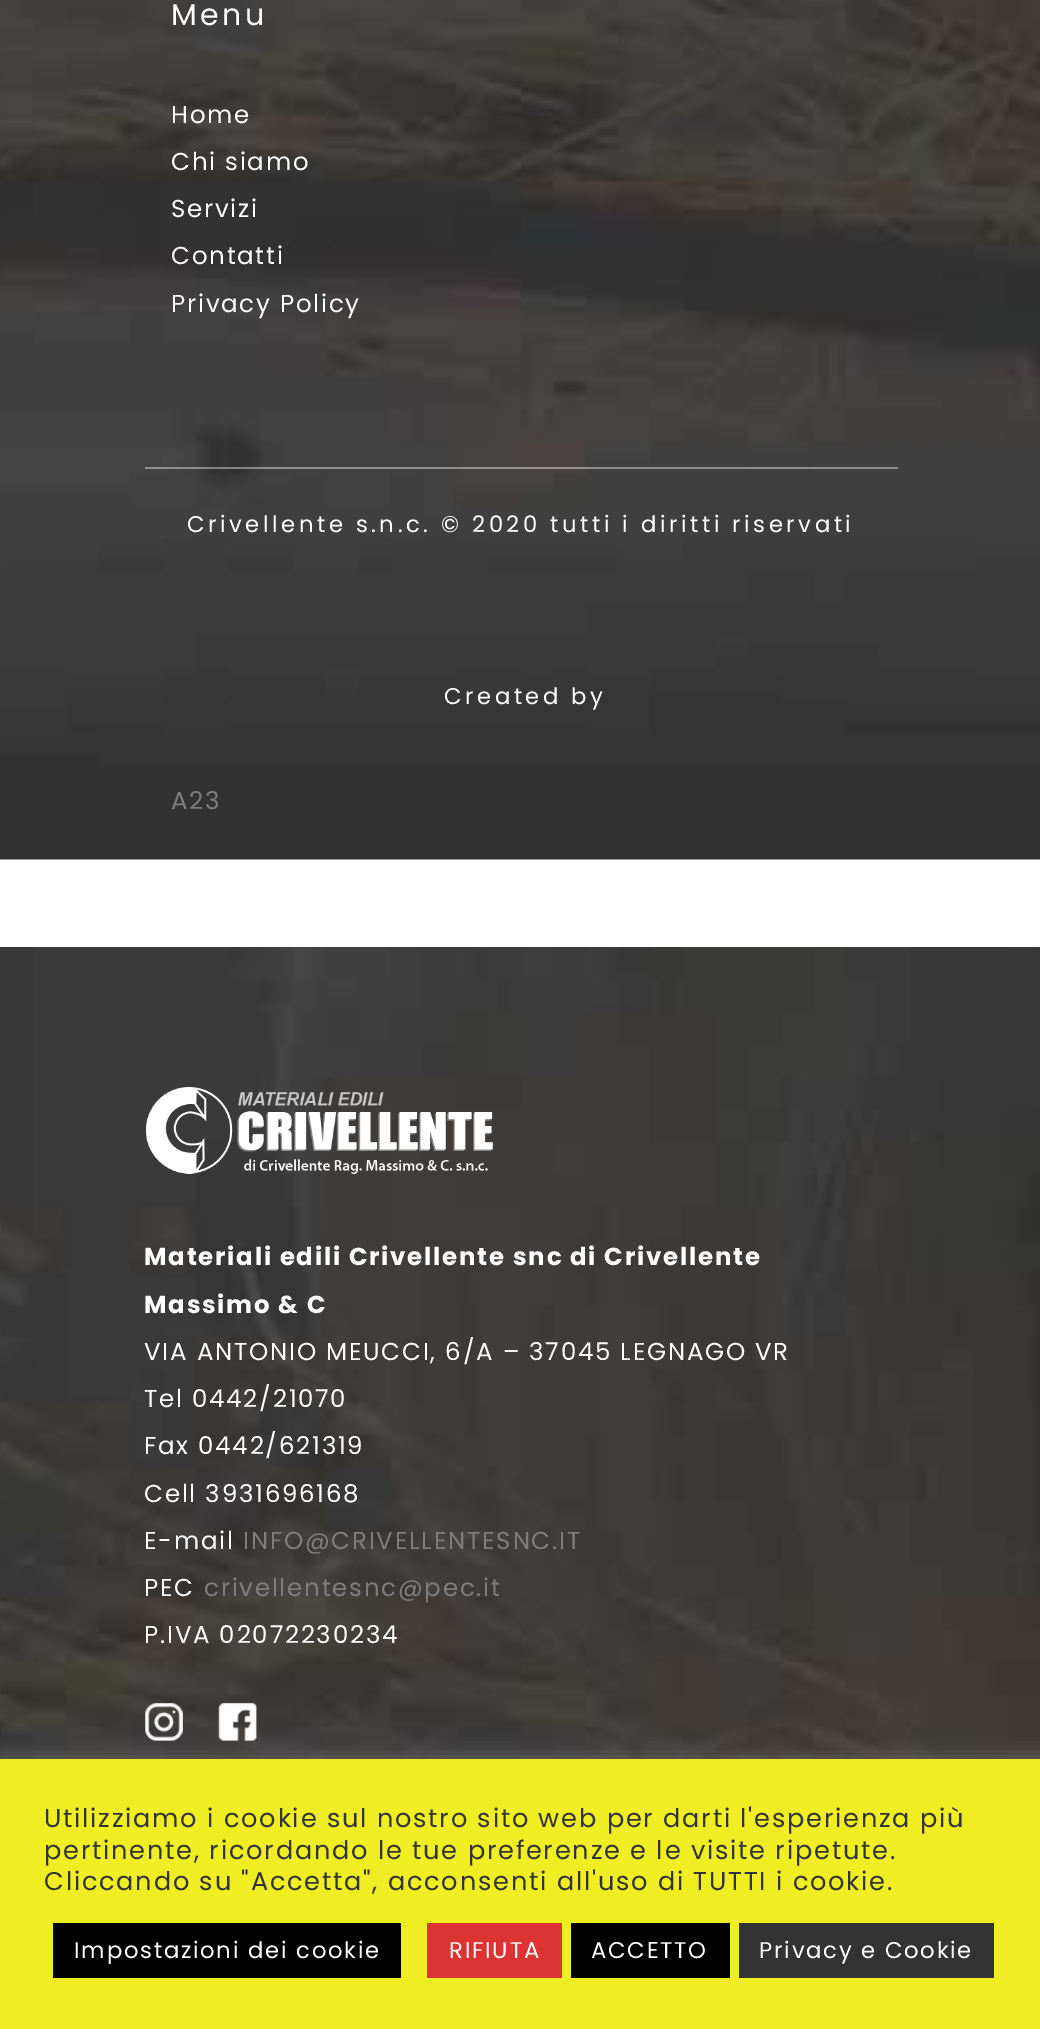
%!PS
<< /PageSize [1040 2029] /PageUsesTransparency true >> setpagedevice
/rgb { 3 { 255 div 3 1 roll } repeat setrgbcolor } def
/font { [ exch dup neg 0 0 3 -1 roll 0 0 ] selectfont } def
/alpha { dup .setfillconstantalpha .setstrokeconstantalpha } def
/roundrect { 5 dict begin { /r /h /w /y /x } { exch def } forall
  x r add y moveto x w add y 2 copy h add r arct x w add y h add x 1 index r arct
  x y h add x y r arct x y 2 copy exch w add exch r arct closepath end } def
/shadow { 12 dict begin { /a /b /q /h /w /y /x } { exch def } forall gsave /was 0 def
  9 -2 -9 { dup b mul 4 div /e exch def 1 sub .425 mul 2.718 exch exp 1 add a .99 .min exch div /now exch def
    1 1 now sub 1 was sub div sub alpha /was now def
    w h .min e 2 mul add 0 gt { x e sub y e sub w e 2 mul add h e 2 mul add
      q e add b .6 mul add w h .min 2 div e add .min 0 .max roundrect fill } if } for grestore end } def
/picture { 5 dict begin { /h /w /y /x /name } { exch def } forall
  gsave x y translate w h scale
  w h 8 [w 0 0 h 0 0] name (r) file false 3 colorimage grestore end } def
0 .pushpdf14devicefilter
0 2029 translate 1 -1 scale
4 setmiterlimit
255 255 255 rgb
0 0 1040 2029 rectfill
(img/1.rgb) 0 0 1040 860 picture
0.4 alpha
145 467 753 2 rectfill
1 alpha
(img/2.rgb) 0 947 1040 812 picture
(img/3.rgb) 146 1087 348 87 picture
(img/4.rgb) 145 1703 38 38 picture
(img/5.rgb) 218 1703 39 38 picture
172 171 171 rgb
0 1757 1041 271 0 9 0.3 shadow
[
  [0 1759 1040 270 238 238 34]
  [53 1923 348 55 0 0 0]
  [427 1923 135 55 221 51 51]
  [571 1923 159 55 0 0 0]
  [739 1923 255 55 51 51 51]
] { aload pop rgb rectfill } forall
/Poppins-Regular 30 font
255 255 255 rgb
171 25 moveto 3.5 0 (Menu) ashow
/Poppins-Regular 24.5 font
171 123 moveto 1.75 0 (Home) ashow
171 170 moveto 1.75 0 (Chi siamo) ashow
171 217 moveto 1.75 0 (Servizi) ashow
171 264 moveto 1.75 0 (Contatti) ashow
171 312 moveto 1.75 0 (Privacy Policy) ashow
/Poppins-Regular 22.75 font
187 532 moveto 3.5 0 (Crivellente s.n.c. © 2020 tutti i diritti riservati) ashow
444 704 moveto 3.5 0 (Created by) ashow
/Poppins-Regular 24.5 font
126 126 126 rgb
171 809 moveto 1.75 0 (A23) ashow
/Poppins-Bold 24.5 font
255 255 255 rgb
144 1265 moveto 1.75 0 (Materiali edili Crivellente snc di Crivellente) ashow
144 1313 moveto 1.75 0 (Massimo & C) ashow
/Poppins-Regular 24.5 font
144 1360 moveto 1.75 0 (VIA ANTONIO MEUCCI, 6/A – 37045 LEGNAGO VR) ashow
144 1407 moveto 1.75 0 (Tel 0442/21070) ashow
144 1454 moveto 1.75 0 (Fax 0442/621319) ashow
144 1502 moveto 1.75 0 (Cell 3931696168) ashow
144 1549 moveto 1.75 0 (E-mail) ashow
126 126 126 rgb
243 1549 moveto 1.75 0 (INFO@CRIVELLENTESNC.IT) ashow
255 255 255 rgb
144 1596 moveto 1.75 0 (PEC) ashow
126 126 126 rgb
204 1596 moveto 1.75 0 (crivellentesnc@pec.it) ashow
255 255 255 rgb
144 1643 moveto 1.75 0 (P.IVA 02072230234) ashow
/Poppins-Regular 25.65 font
51 51 51 rgb
44 1827 moveto 1.75 0 (Utilizziamo i cookie sul nostro sito web per darti l'esperienza più) ashow
44 1859 moveto 1.75 0 (pertinente, ricordando le tue preferenze e le visite ripetute.) ashow
44 1890 moveto 1.75 0 (Cliccando su "Accetta", acconsenti all'uso di TUTTI i cookie.) ashow
/Poppins-Regular 22.75 font
255 255 255 rgb
74 1958 moveto 1.75 0 (Impostazioni dei cookie) ashow
449 1958 moveto 1.75 0 (RIFIUTA) ashow
591 1958 moveto 1.75 0 (ACCETTO) ashow
759 1958 moveto 1.75 0 (Privacy e Cookie) ashow
.poppdf14devicefilter showpage
